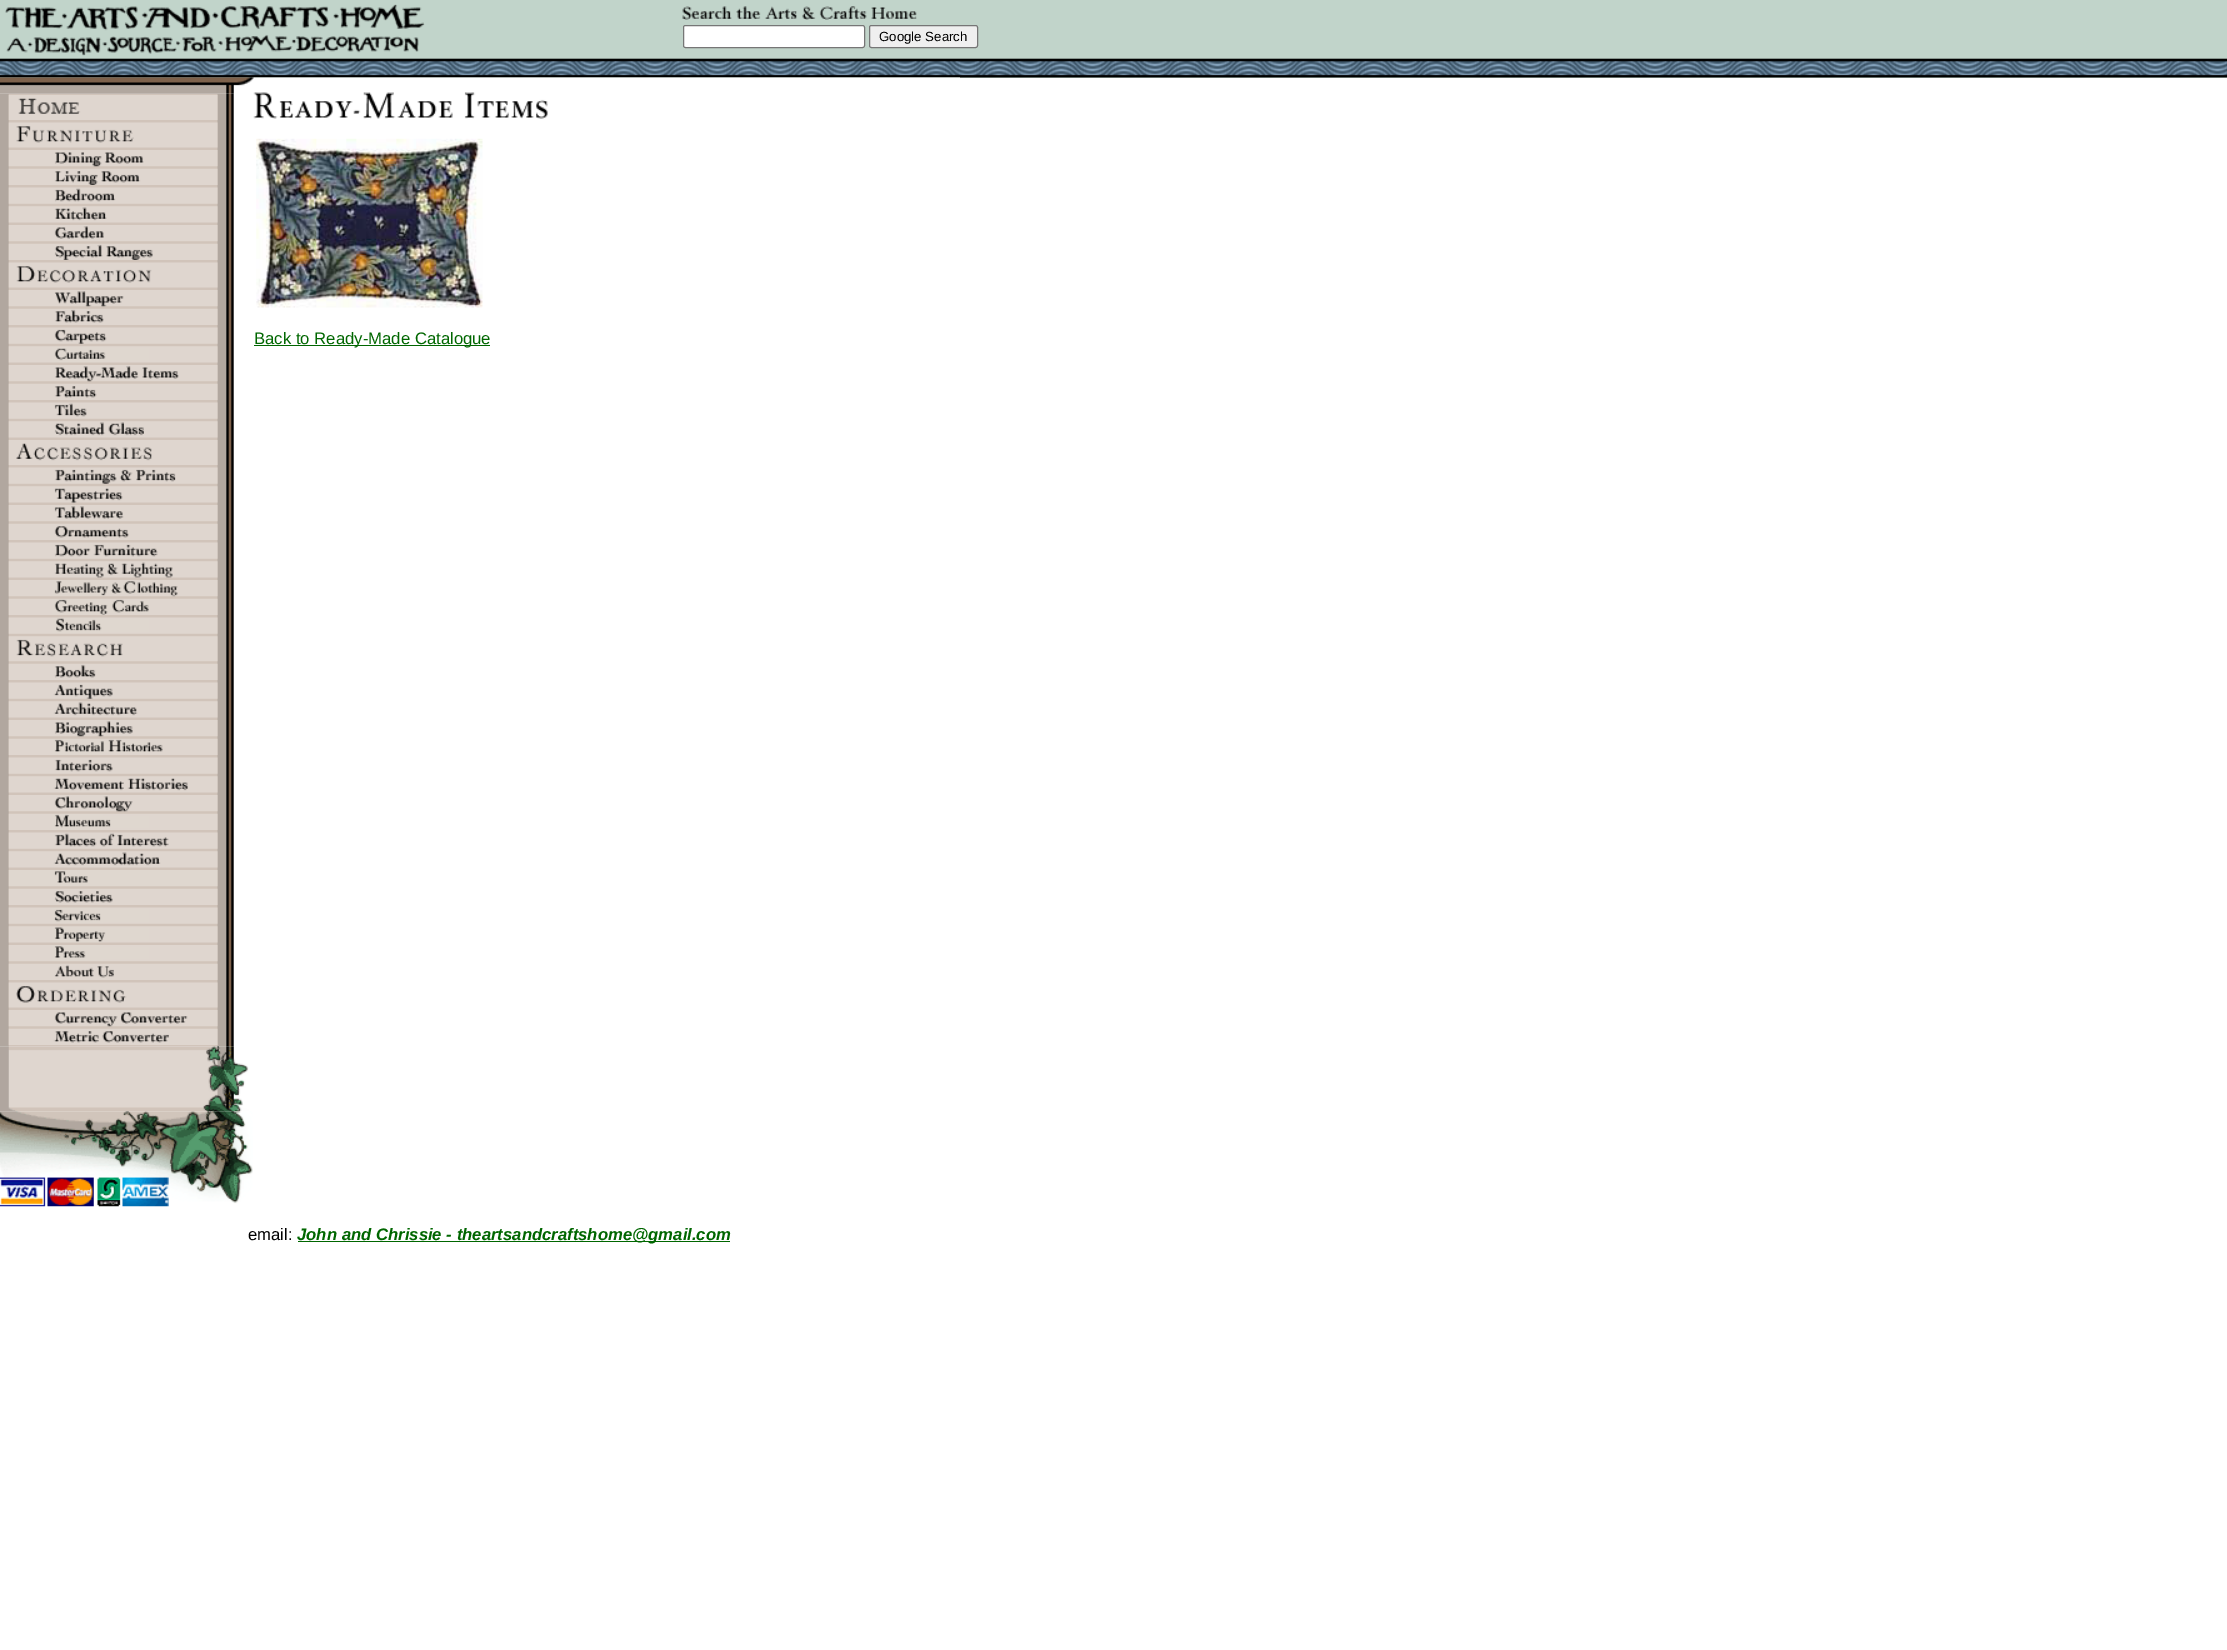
%!PS
<< /PageSize [2227 1650] >> setpagedevice
/rgb { 3 { 255 div 3 1 roll } repeat setrgbcolor } def
/font { [ exch dup neg 0 0 3 -1 roll 0 0 ] selectfont } def
/roundrect { 5 dict begin { /r /h /w /y /x } { exch def } forall
  x r add y moveto x w add y 2 copy h add r arct x w add y h add x 1 index r arct
  x y h add x y r arct x y 2 copy exch w add exch r arct closepath end } def
/picture { 5 dict begin { /h /w /y /x /name } { exch def } forall
  gsave x y translate w h scale
  w h 8 [w 0 0 h 0 0] name (r) file false 3 colorimage grestore end } def
0 1650 translate 1 -1 scale
4 setmiterlimit
255 255 255 rgb
0 0 2227 1650 rectfill
193 212 202 rgb
0 0 2227 78 rectfill
(img/1.rgb) 0 58 2227 20 picture
(img/2.rgb) 5 4 420 52 picture
(img/3.rgb) 682 6 235 14 picture
255 255 255 rgb
683.5 25.5 181 22 2 roundrect gsave fill grestore
118 118 118 rgb
stroke
239 239 239 rgb
869.5 25.5 108 22 2 roundrect gsave fill grestore
118 118 118 rgb
stroke
(img/5.rgb) 0 93 227 954 picture
(img/54.rgb) 226 93 8 954 picture
(img/4.rgb) 0 77 254 17 picture
(img/6.rgb) 8 95 210 25 picture
(img/7.rgb) 8 122 210 26 picture
(img/8.rgb) 8 150 210 17 picture
(img/9.rgb) 8 168 210 17 picture
(img/10.rgb) 8 187 210 17 picture
(img/11.rgb) 8 206 210 17 picture
(img/12.rgb) 8 225 210 17 picture
(img/13.rgb) 8 243 210 17 picture
(img/14.rgb) 8 262 210 26 picture
(img/15.rgb) 8 290 210 17 picture
(img/16.rgb) 8 308 210 17 picture
(img/17.rgb) 8 327 210 17 picture
(img/18.rgb) 8 346 210 17 picture
(img/19.rgb) 8 365 210 17 picture
(img/20.rgb) 8 383 210 17 picture
(img/21.rgb) 8 402 210 17 picture
(img/22.rgb) 8 421 210 17 picture
(img/23.rgb) 8 440 210 25 picture
(img/24.rgb) 8 467 210 17 picture
(img/25.rgb) 8 486 210 17 picture
(img/26.rgb) 8 505 210 17 picture
(img/27.rgb) 8 523 210 17 picture
(img/28.rgb) 8 542 210 17 picture
(img/29.rgb) 8 561 210 17 picture
(img/30.rgb) 8 580 210 17 picture
(img/31.rgb) 8 598 210 17 picture
(img/32.rgb) 8 617 210 17 picture
(img/33.rgb) 8 636 210 26 picture
(img/34.rgb) 8 663 210 17 picture
(img/35.rgb) 8 682 210 17 picture
(img/36.rgb) 8 701 210 17 picture
(img/37.rgb) 8 720 210 17 picture
(img/38.rgb) 8 738 210 17 picture
(img/39.rgb) 8 757 210 17 picture
(img/40.rgb) 8 776 210 17 picture
(img/41.rgb) 8 795 210 17 picture
(img/42.rgb) 8 813 210 17 picture
(img/43.rgb) 8 832 210 17 picture
(img/44.rgb) 8 851 210 17 picture
(img/45.rgb) 8 870 210 17 picture
(img/46.rgb) 8 888 210 17 picture
(img/47.rgb) 8 907 210 17 picture
(img/48.rgb) 8 926 210 17 picture
(img/49.rgb) 8 945 210 17 picture
(img/50.rgb) 8 963 210 17 picture
(img/51.rgb) 8 982 210 26 picture
(img/52.rgb) 8 1010 210 17 picture
(img/53.rgb) 8 1028 210 17 picture
(img/55.rgb) 0 1046 249 66 picture
(img/56.rgb) 0 1111 253 96 picture
(img/57.rgb) 253 77 707 42 picture
(img/58.rgb) 256 138 227 170 picture
0 102 0 rgb
254 345 236 1 rectfill
298 1241 432 1 rectfill
/LiberationSans-Regular 13.25 font
0 0 0 rgb
879 41 moveto (Google Search) show
/LiberationSans-Regular 16.7 font
0 102 0 rgb
254 344 moveto (Back to Ready-Made Catalogue) show
0 0 0 rgb
248 1240 moveto (email:) show
/LiberationSans-BoldItalic 16.7 font
0 102 0 rgb
297 1240 moveto (John and Chrissie - theartsandcraftshome@gmail.com) show
showpage
